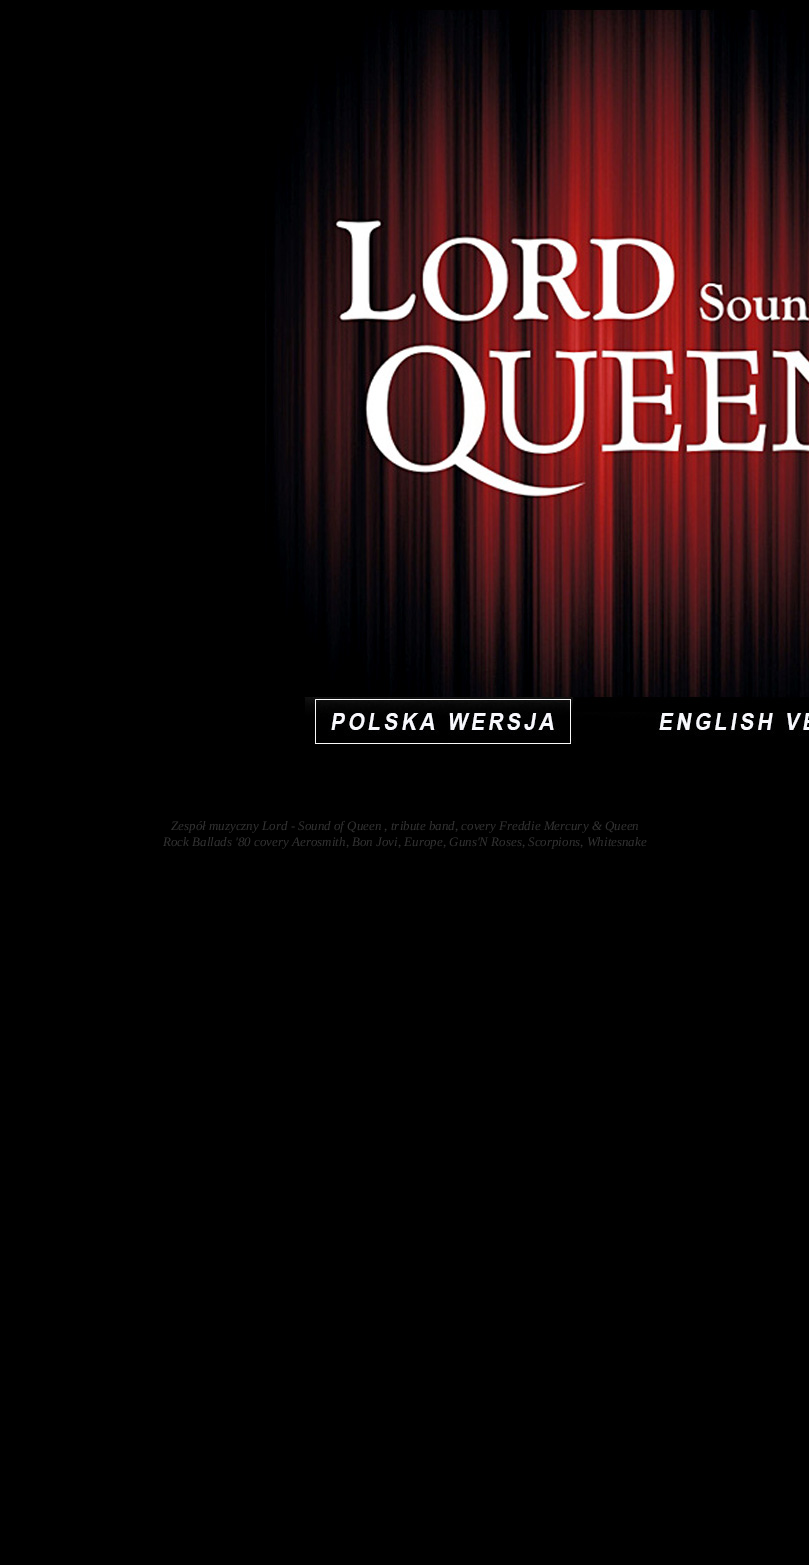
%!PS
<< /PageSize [809 1565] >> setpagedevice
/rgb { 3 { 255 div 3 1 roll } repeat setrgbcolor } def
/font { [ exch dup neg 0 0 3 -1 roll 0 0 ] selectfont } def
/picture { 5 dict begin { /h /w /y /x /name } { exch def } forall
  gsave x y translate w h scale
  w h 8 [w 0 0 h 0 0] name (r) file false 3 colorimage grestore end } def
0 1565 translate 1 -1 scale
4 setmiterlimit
0 0 0 rgb
0 0 809 1565 rectfill
(img/1.rgb) 265 8 544 736 picture
/LiberationSerif-Italic 13 font
51 51 51 rgb
171 830 moveto (Zespół muzyczny Lord - Sound of Queen , tribute band, covery Freddie Mercury & Queen) show
163 846 moveto (Rock Ballads '80 covery Aerosmith, Bon Jovi, Europe, Guns'N Roses, Scorpions, Whitesnake) show
showpage
